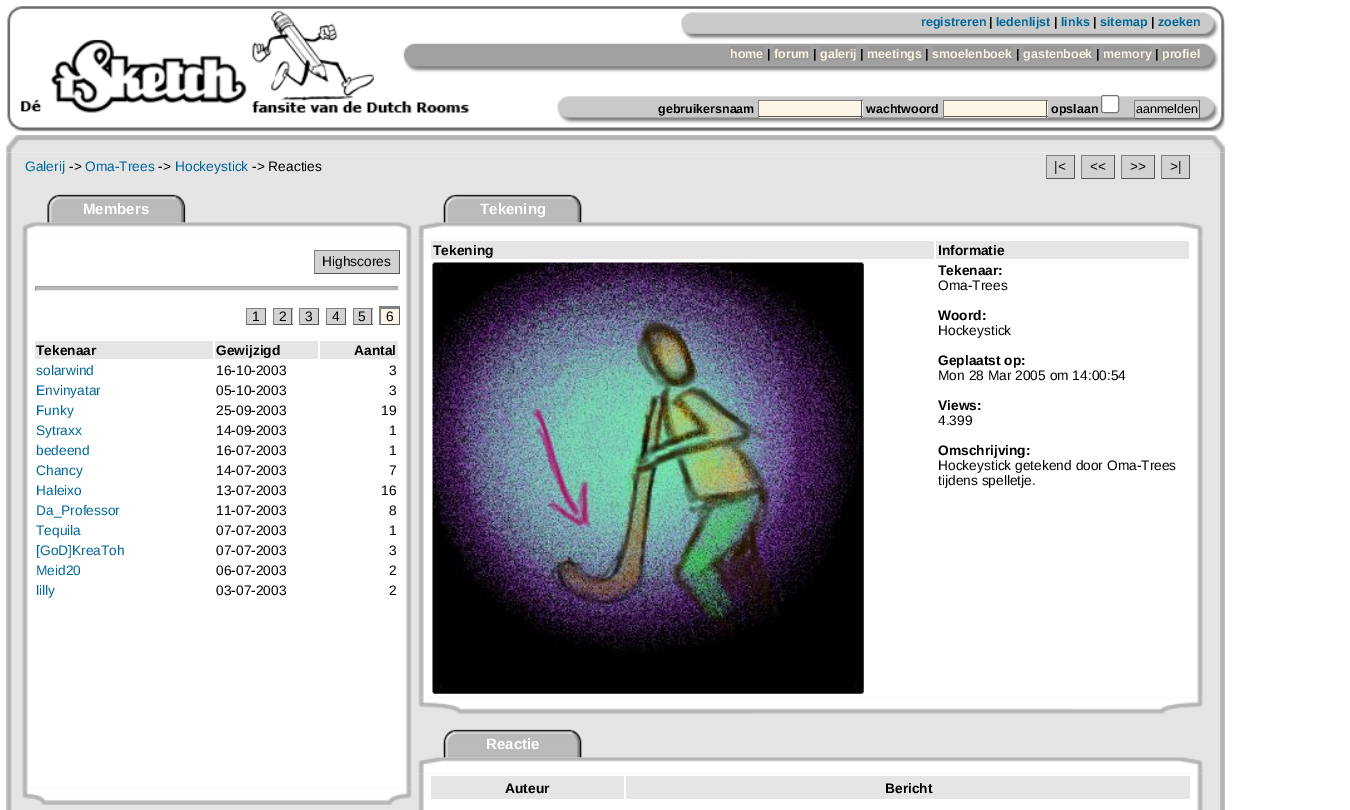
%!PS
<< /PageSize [1350 810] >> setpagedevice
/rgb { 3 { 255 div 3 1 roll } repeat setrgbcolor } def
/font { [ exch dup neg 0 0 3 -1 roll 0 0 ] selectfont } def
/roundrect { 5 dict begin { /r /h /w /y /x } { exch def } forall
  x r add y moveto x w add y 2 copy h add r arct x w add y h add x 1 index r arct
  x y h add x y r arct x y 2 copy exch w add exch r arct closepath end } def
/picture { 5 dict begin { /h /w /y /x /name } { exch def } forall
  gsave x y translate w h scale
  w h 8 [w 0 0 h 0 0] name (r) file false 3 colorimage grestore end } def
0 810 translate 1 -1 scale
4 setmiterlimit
255 255 255 rgb
0 0 1350 810 rectfill
(img/1.rgb) 7 6 1218 126 picture
[
  [730 46 34 14 153 153 153]
  [774 46 36 14 153 153 153]
  [820 46 36 14 153 153 153]
  [868 46 55 14 153 153 153]
  [933 46 80 14 153 153 153]
  [1023 46 70 14 153 153 153]
  [1103 46 48 14 153 153 153]
  [1161 46 39 14 153 153 153]
  [759 101 104 17 253 245 230]
  [758 100 105 1 128 128 128]
  [861 100 1 18 85 85 85]
  [758 116 105 1 85 85 85]
  [758 100 1 18 128 128 128]
  [944 101 104 17 253 245 230]
  [943 100 105 1 128 128 128]
  [1046 100 1 18 85 85 85]
  [943 116 105 1 85 85 85]
  [943 100 1 18 128 128 128]
] { aload pop rgb rectfill } forall
255 255 255 rgb
1101.5 95.5 17 17 2 roundrect gsave fill grestore
118 118 118 rgb
stroke
[
  [1135 101 64 17 210 210 210]
  [1134 100 66 1 128 128 128]
  [1199 100 1 19 85 85 85]
  [1134 118 66 1 85 85 85]
  [1134 100 1 19 128 128 128]
] { aload pop rgb rectfill } forall
(img/2.rgb) 6 135 1219 18 picture
(img/3.rgb) 6 152 1219 658 picture
[
  [1047 156 27 22 210 210 210]
  [1046 155 29 1 128 128 128]
  [1074 155 1 24 85 85 85]
  [1046 178 29 1 85 85 85]
  [1046 155 1 24 128 128 128]
  [1082 156 32 22 210 210 210]
  [1081 155 34 1 128 128 128]
  [1114 155 1 24 85 85 85]
  [1081 178 34 1 85 85 85]
  [1081 155 1 24 128 128 128]
  [1122 156 32 22 210 210 210]
  [1121 155 34 1 128 128 128]
  [1154 155 1 24 85 85 85]
  [1121 178 34 1 85 85 85]
  [1121 155 1 24 128 128 128]
  [1162 156 27 22 210 210 210]
  [1161 155 29 1 128 128 128]
  [1189 155 1 24 85 85 85]
  [1161 178 29 1 85 85 85]
  [1161 155 1 24 128 128 128]
] { aload pop rgb rectfill } forall
(img/4.rgb) 47 194 139 29 picture
(img/5.rgb) 22 222 390 17 picture
(img/6.rgb) 22 238 390 551 picture
[
  [315 251 84 22 210 210 210]
  [314 250 86 1 128 128 128]
  [399 250 1 24 85 85 85]
  [314 273 86 1 85 85 85]
  [314 250 1 24 128 128 128]
  [35 287 364 3 183 183 183]
  [35 286 364 1 159 159 159]
  [398 286 1 5 238 238 238]
  [35 290 364 1 238 238 238]
  [35 286 1 5 159 159 159]
  [247 309 18 15 210 210 210]
  [246 308 20 1 128 128 128]
  [265 308 1 17 85 85 85]
  [246 324 20 1 85 85 85]
  [246 308 1 17 128 128 128]
  [274 309 19 15 210 210 210]
  [273 308 20 1 128 128 128]
  [291 308 1 17 85 85 85]
  [273 324 20 1 85 85 85]
  [273 308 1 17 128 128 128]
  [300 309 18 15 210 210 210]
  [299 308 20 1 128 128 128]
  [318 308 1 17 85 85 85]
  [299 324 20 1 85 85 85]
  [299 308 1 17 128 128 128]
  [327 309 18 15 210 210 210]
  [326 308 20 1 128 128 128]
  [345 308 1 17 85 85 85]
  [326 324 20 1 85 85 85]
  [326 308 1 17 128 128 128]
  [354 309 19 15 210 210 210]
  [353 308 20 1 128 128 128]
  [371 308 1 17 85 85 85]
  [353 324 20 1 85 85 85]
  [353 308 1 17 128 128 128]
  [379 306 21 19 253 245 230]
] { aload pop rgb rectfill } forall
128 128 128 rgb
379 306 moveto 400 306 lineto 399 309 lineto 381 309 lineto closepath fill
85 85 85 rgb
400 306 moveto 400 325 lineto 399 324 lineto 399 309 lineto closepath fill
400 325 moveto 379 325 lineto 381 324 lineto 399 324 lineto closepath fill
128 128 128 rgb
379 325 moveto 379 306 lineto 381 309 lineto 381 324 lineto closepath fill
[
  [35 341 178 18 229 229 229]
  [215 341 103 18 229 229 229]
  [320 341 78 18 229 229 229]
] { aload pop rgb rectfill } forall
(img/7.rgb) 22 789 390 16 picture
(img/8.rgb) 443 194 139 29 picture
(img/9.rgb) 418 222 785 17 picture
(img/10.rgb) 418 239 785 459 picture
431 241 503 18 rectfill
936 241 253 18 rectfill
(img/11.rgb) 432 262 432 432 picture
(img/12.rgb) 418 697 785 17 picture
(img/8.rgb) 443 729 139 29 picture
(img/9.rgb) 418 757 785 17 picture
(img/13.rgb) 418 774 785 36 picture
431 776 193 23 rectfill
626 776 564 23 rectfill
/LiberationSans-Bold 12.5 font
0 102 153 rgb
921 26 moveto (registreren) show
0 0 0 rgb
989 26 moveto (|) show
0 102 153 rgb
996 26 moveto (ledenlijst) show
0 0 0 rgb
1054 26 moveto (|) show
0 102 153 rgb
1061 26 moveto (links) show
0 0 0 rgb
1093 26 moveto (|) show
0 102 153 rgb
1100 26 moveto (sitemap) show
0 0 0 rgb
1151 26 moveto (|) show
0 102 153 rgb
1158 26 moveto (zoeken) show
253 245 230 rgb
730 58 moveto (home) show
0 0 0 rgb
767 58 moveto (|) show
253 245 230 rgb
774 58 moveto (forum) show
0 0 0 rgb
813 58 moveto (|) show
253 245 230 rgb
820 58 moveto (galerij) show
0 0 0 rgb
860 58 moveto (|) show
253 245 230 rgb
867 58 moveto (meetings) show
0 0 0 rgb
925 58 moveto (|) show
253 245 230 rgb
932 58 moveto (smoelenboek) show
0 0 0 rgb
1016 58 moveto (|) show
253 245 230 rgb
1023 58 moveto (gastenboek) show
0 0 0 rgb
1096 58 moveto (|) show
253 245 230 rgb
1103 58 moveto (memory) show
0 0 0 rgb
1155 58 moveto (|) show
253 245 230 rgb
1162 58 moveto (profiel) show
0 0 0 rgb
[
  [(gebruikersnaam) 658 113]
  [(wachtwoord) 866 113]
  [(opslaan) 1051 113]
] { aload pop moveto show } forall
/LiberationSans-Regular 12.5 font
1136 113 moveto (aanmelden) show
/LiberationSans-Regular 13.75 font
0 102 153 rgb
25 171 moveto (Galerij) show
0 0 0 rgb
69 171 moveto (->) show
0 102 153 rgb
85 171 moveto (Oma-Trees) show
0 0 0 rgb
158 171 moveto (->) show
0 102 153 rgb
175 171 moveto (Hockeystick) show
0 0 0 rgb
[
  [(-> Reacties) 252 171]
  [(|<) 1054 171]
  [(<<) 1090 171]
  [(>>) 1130 171]
  [(>|) 1170 171]
] { aload pop moveto show } forall
/LiberationSans-Bold 15 font
254 254 254 rgb
83 214 moveto (Members) show
/LiberationSans-Regular 13.75 font
0 0 0 rgb
[
  [(Highscores) 322 266]
  [(1) 252 321]
  [(2) 279 321]
  [(3) 305 321]
  [(4) 332 321]
  [(5) 358 321]
  [(6) 386 321]
] { aload pop moveto show } forall
/LiberationSans-Bold 13.75 font
[
  [(Tekenaar) 36 355]
  [(Gewijzigd) 216 355]
  [(Aantal) 354 355]
] { aload pop moveto show } forall
/LiberationSans-Regular 13.75 font
0 102 153 rgb
36 375 moveto (solarwind) show
0 0 0 rgb
216 375 moveto (16-10-2003) show
389 375 moveto (3) show
0 102 153 rgb
36 395 moveto (Envinyatar) show
0 0 0 rgb
216 395 moveto (05-10-2003) show
389 395 moveto (3) show
0 102 153 rgb
36 415 moveto (Funky) show
0 0 0 rgb
216 415 moveto (25-09-2003) show
381 415 moveto (19) show
0 102 153 rgb
36 435 moveto (Sytraxx) show
0 0 0 rgb
216 435 moveto (14-09-2003) show
389 435 moveto (1) show
0 102 153 rgb
36 455 moveto (bedeend) show
0 0 0 rgb
216 455 moveto (16-07-2003) show
389 455 moveto (1) show
0 102 153 rgb
36 475 moveto (Chancy) show
0 0 0 rgb
216 475 moveto (14-07-2003) show
389 475 moveto (7) show
0 102 153 rgb
36 495 moveto (Haleixo) show
0 0 0 rgb
216 495 moveto (13-07-2003) show
381 495 moveto (16) show
0 102 153 rgb
36 515 moveto (Da_Professor) show
0 0 0 rgb
216 515 moveto (11-07-2003) show
389 515 moveto (8) show
0 102 153 rgb
36 535 moveto (Tequila) show
0 0 0 rgb
216 535 moveto (07-07-2003) show
389 535 moveto (1) show
0 102 153 rgb
36 555 moveto ([GoD]KreaToh) show
0 0 0 rgb
216 555 moveto (07-07-2003) show
389 555 moveto (3) show
0 102 153 rgb
36 575 moveto (Meid20) show
0 0 0 rgb
216 575 moveto (06-07-2003) show
389 575 moveto (2) show
0 102 153 rgb
36 595 moveto (lilly) show
0 0 0 rgb
216 595 moveto (03-07-2003) show
389 595 moveto (2) show
/LiberationSans-Bold 15 font
254 254 254 rgb
480 214 moveto (Tekening) show
/LiberationSans-Bold 13.75 font
0 0 0 rgb
[
  [(Tekening) 433 255]
  [(Informatie) 938 255]
  [(Tekenaar:) 938 275]
] { aload pop moveto show } forall
/LiberationSans-Regular 13.75 font
938 290 moveto (Oma-Trees) show
/LiberationSans-Bold 13.75 font
938 320 moveto (Woord:) show
/LiberationSans-Regular 13.75 font
938 335 moveto (Hockeystick) show
/LiberationSans-Bold 13.75 font
938 365 moveto (Geplaatst op:) show
/LiberationSans-Regular 13.75 font
938 380 moveto (Mon 28 Mar 2005 om 14:00:54) show
/LiberationSans-Bold 13.75 font
938 410 moveto (Views:) show
/LiberationSans-Regular 13.75 font
938 425 moveto (4.399) show
/LiberationSans-Bold 13.75 font
938 455 moveto (Omschrijving:) show
/LiberationSans-Regular 13.75 font
938 470 moveto (Hockeystick getekend door Oma-Trees) show
938 485 moveto (tijdens spelletje.) show
/LiberationSans-Bold 15 font
254 254 254 rgb
486 749 moveto (Reactie) show
/LiberationSans-Bold 13.75 font
0 0 0 rgb
505 793 moveto (Auteur) show
885 793 moveto (Bericht) show
showpage
